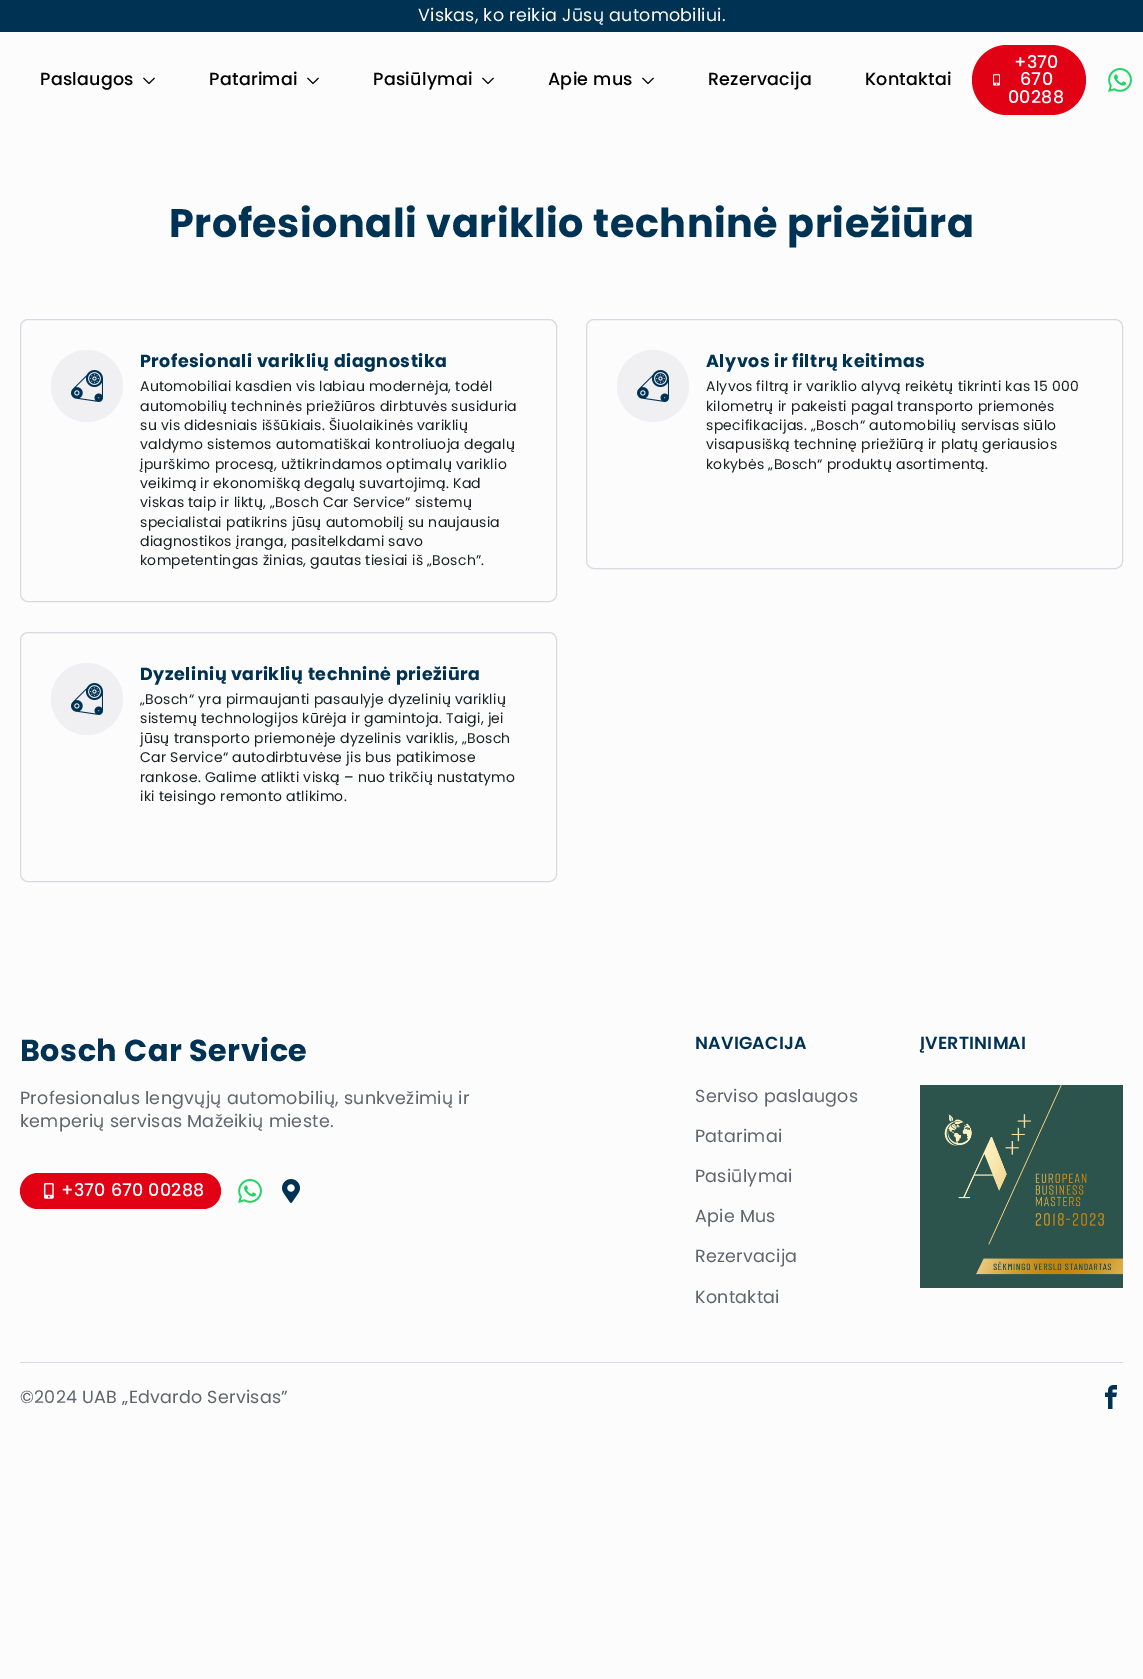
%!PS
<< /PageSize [1143 1679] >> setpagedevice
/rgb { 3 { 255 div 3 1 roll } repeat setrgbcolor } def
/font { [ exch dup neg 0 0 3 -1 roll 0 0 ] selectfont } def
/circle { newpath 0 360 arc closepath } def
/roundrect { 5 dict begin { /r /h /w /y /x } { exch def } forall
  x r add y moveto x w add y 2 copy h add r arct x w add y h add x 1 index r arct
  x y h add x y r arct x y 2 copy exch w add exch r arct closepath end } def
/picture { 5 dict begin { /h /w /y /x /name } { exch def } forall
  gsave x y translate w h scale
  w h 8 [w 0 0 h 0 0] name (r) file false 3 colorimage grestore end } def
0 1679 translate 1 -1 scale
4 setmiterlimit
252 252 253 rgb
0 0 1143 1679 rectfill
0 50 83 rgb
0 0 1143 32 rectfill
(img/1.rgb) 143 77 12 8 picture
(img/1.rgb) 307 77 12 8 picture
(img/1.rgb) 482 77 12 8 picture
(img/1.rgb) 642 77 12 8 picture
226 0 21 rgb
972 45 114 70 35 roundrect fill
(img/2.rgb) 993 74 7 12 picture
(img/3.rgb) 1108 68 24 24 picture
217 217 224 rgb
20.5 319.5 536 282 7.5 roundrect stroke
240 240 243 rgb
87 386 36 circle fill
(img/4.rgb) 71 370 32 32 picture
217 217 224 rgb
586.5 319.5 536 249 7.5 roundrect stroke
240 240 243 rgb
653 386 36 circle fill
(img/4.rgb) 637 370 32 32 picture
217 217 224 rgb
20.5 632.5 536 249 7.5 roundrect stroke
240 240 243 rgb
87 699 36 circle fill
(img/4.rgb) 71 683 32 32 picture
226 0 21 rgb
20 1173 201 36 18 roundrect fill
(img/5.rgb) 43 1183 11 16 picture
(img/3.rgb) 238 1179 24 24 picture
(img/6.rgb) 282 1179 18 24 picture
(img/7.rgb) 920 1085 203 203 picture
217 217 224 rgb
20 1362 1103 1 rectfill
(img/8.rgb) 1105 1385 12 24 picture
/Poppins-Regular 17.5 font
255 255 255 rgb
418 21 moveto 0.25 0 (Viskas, ko reikia Jūsų automobiliui.) ashow
/Poppins-Medium 17.5 font
0 0 0 rgb
40 85 moveto 0.25 0 (Paslaugos) ashow
209 85 moveto 0.25 0 (Patarimai) ashow
373 85 moveto 0.25 0 (Pasiūlymai) ashow
548 85 moveto 0.25 0 (Apie mus) ashow
708 85 moveto 0.25 0 (Rezervacija) ashow
865 85 moveto 0.25 0 (Kontaktai) ashow
255 255 255 rgb
1014 68 moveto 0.25 0 (+370) ashow
1020 85 moveto 0.25 0 (670) ashow
1008 103 moveto 0.25 0 (00288) ashow
/Poppins-Bold 39.75 font
0 50 83 rgb
169 237 moveto 0.5 0 (Profesionali variklio techninė priežiūra) ashow
/Poppins-Bold 17.5 font
140 367 moveto 0.5 0 (Profesionali variklių diagnostika) ashow
/Poppins-Regular 14 font
28 32 36 rgb
140 391 moveto 0.25 0 (Automobiliai kasdien vis labiau modernėja, todėl) ashow
140 411 moveto 0.25 0 (automobilių techninės priežiūros dirbtuvės susiduria) ashow
140 430 moveto 0.25 0 (su vis didesniais iššūkiais. Šiuolaikinės variklių) ashow
140 449 moveto 0.25 0 (valdymo sistemos automatiškai kontroliuoja degalų) ashow
140 469 moveto 0.25 0 (įpurškimo procesą, užtikrindamos optimalų variklio) ashow
140 488 moveto 0.25 0 (veikimą ir ekonomišką degalų suvartojimą. Kad) ashow
140 507 moveto 0.25 0 (viskas taip ir liktų, „Bosch Car Service“ sistemų) ashow
140 527 moveto 0.25 0 (specialistai patikrins jūsų automobilį su naujausia) ashow
140 546 moveto 0.25 0 (diagnostikos įranga, pasitelkdami savo) ashow
140 565 moveto 0.25 0 (kompetentingas žinias, gautas tiesiai iš „Bosch”.) ashow
/Poppins-Bold 17.5 font
0 50 83 rgb
706 367 moveto 0.5 0 (Alyvos ir filtrų keitimas) ashow
/Poppins-Regular 14 font
28 32 36 rgb
706 391 moveto 0.25 0 (Alyvos filtrą ir variklio alyvą reikėtų tikrinti kas 15 000) ashow
706 411 moveto 0.25 0 (kilometrų ir pakeisti pagal transporto priemonės) ashow
706 430 moveto 0.25 0 (specifikacijas. „Bosch“ automobilių servisas siūlo) ashow
706 449 moveto 0.25 0 (visapusišką techninę priežiūrą ir platų geriausios) ashow
706 469 moveto 0.25 0 (kokybės „Bosch“ produktų asortimentą.) ashow
/Poppins-Bold 17.5 font
0 50 83 rgb
140 680 moveto 0.5 0 (Dyzelinių variklių techninė priežiūra) ashow
/Poppins-Regular 14 font
28 32 36 rgb
140 704 moveto 0.25 0 („Bosch“ yra pirmaujanti pasaulyje dyzelinių variklių) ashow
140 723 moveto 0.25 0 (sistemų technologijos kūrėja ir gamintoja. Taigi, jei) ashow
140 743 moveto 0.25 0 (jūsų transporto priemonėje dyzelinis variklis, „Bosch) ashow
140 762 moveto 0.25 0 (Car Service“ autodirbtuvėse jis bus patikimose) ashow
140 782 moveto 0.25 0 (rankose. Galime atlikti viską – nuo trikčių nustatymo) ashow
140 801 moveto 0.25 0 (iki teisingo remonto atlikimo.) ashow
/Poppins-Bold 30.25 font
0 50 83 rgb
20 1061 moveto 0.5 0 (Bosch Car Service) ashow
/Poppins-Regular 17.5 font
96 100 108 rgb
20 1104 moveto 0.25 0 (Profesionalus lengvųjų automobilių, sunkvežimių ir) ashow
20 1127 moveto 0.25 0 (kemperių servisas Mažeikių mieste.) ashow
/Poppins-Medium 17.5 font
255 255 255 rgb
61 1196 moveto 0.25 0 (+370 670 00288) ashow
/Poppins-SemiBold 17.5 font
0 50 83 rgb
695 1049 moveto 0.25 0 (NAVIGACIJA) ashow
/Poppins-Regular 17.5 font
96 100 108 rgb
695 1102 moveto 0.25 0 (Serviso paslaugos) ashow
695 1142 moveto 0.25 0 (Patarimai) ashow
695 1182 moveto 0.25 0 (Pasiūlymai) ashow
695 1222 moveto 0.25 0 (Apie Mus) ashow
695 1262 moveto 0.25 0 (Rezervacija) ashow
695 1303 moveto 0.25 0 (Kontaktai) ashow
/Poppins-SemiBold 17.5 font
0 50 83 rgb
920 1049 moveto 0.25 0 (ĮVERTINIMAI) ashow
/Poppins-Regular 17.5 font
96 100 108 rgb
20 1403 moveto 0.25 0 (©2024 UAB „Edvardo Servisas”) ashow
showpage
